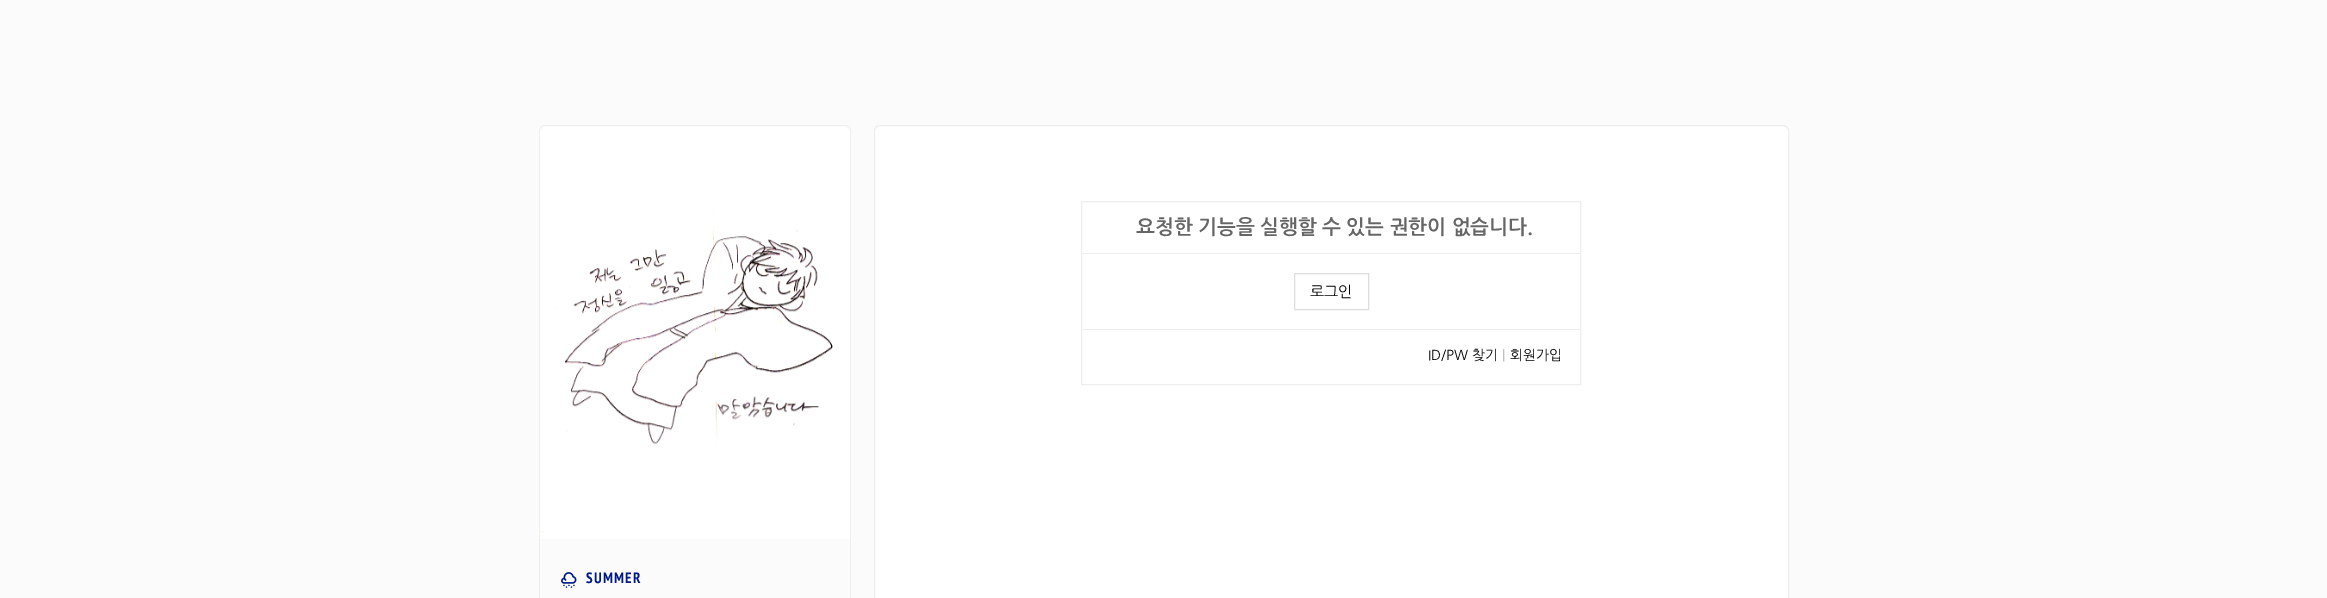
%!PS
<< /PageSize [2327 598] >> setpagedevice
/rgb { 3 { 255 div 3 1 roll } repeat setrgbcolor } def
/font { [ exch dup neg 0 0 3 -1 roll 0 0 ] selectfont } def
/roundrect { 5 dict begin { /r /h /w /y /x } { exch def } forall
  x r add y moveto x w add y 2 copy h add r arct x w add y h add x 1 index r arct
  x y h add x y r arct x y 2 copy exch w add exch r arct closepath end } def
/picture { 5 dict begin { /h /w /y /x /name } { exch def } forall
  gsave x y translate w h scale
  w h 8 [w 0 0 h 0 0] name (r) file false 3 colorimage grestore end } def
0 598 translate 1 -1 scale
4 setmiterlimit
251 251 251 rgb
0 0 2327 598 rectfill
255 255 255 rgb
874.5 125.5 914 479 5.5 roundrect gsave fill grestore
238 238 238 rgb
stroke
1081.5 201.5 499 183 rectstroke
1083 253 497 1 rectfill
221 221 221 rgb
1294.5 273.5 74 36 rectstroke
238 238 238 rgb
1083 329 497 1 rectfill
545 125 moveto 845 125 lineto 848 125 851 128 851 131 curveto 851 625 lineto 539 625 lineto 539 131 lineto 539 128 542 125 545 125 curveto closepath 545 126 moveto 845 126 lineto 848 126 850 128 850 131 curveto 850 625 lineto 540 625 lineto 540 131 lineto 540 128 542 126 545 126 curveto closepath eofill
244 244 244 rgb
540 126 310 414 rectfill
(img/1.rgb) 540 126 310 414 picture
(img/2.rgb) 561 572 16 16 picture
/NanumGothic-Bold 20 font
102 102 102 rgb
1136 234 moveto (요청한 기능을 실행할 수 있는 권한이 없습니다.) show
/NanumGothic-Regular 15 font
0 0 0 rgb
1310 297 moveto (로그인) show
/NanumGothic-Regular 13.75 font
1428 360 moveto (ID/PW 찾기) show
170 170 170 rgb
1502 360 moveto (|) show
0 0 0 rgb
1510 360 moveto (회원가입) show
/PTSansNarrow-Bold 15 font
0 25 134 rgb
586 583 moveto 1.25 0 (SUMMER) ashow
showpage
